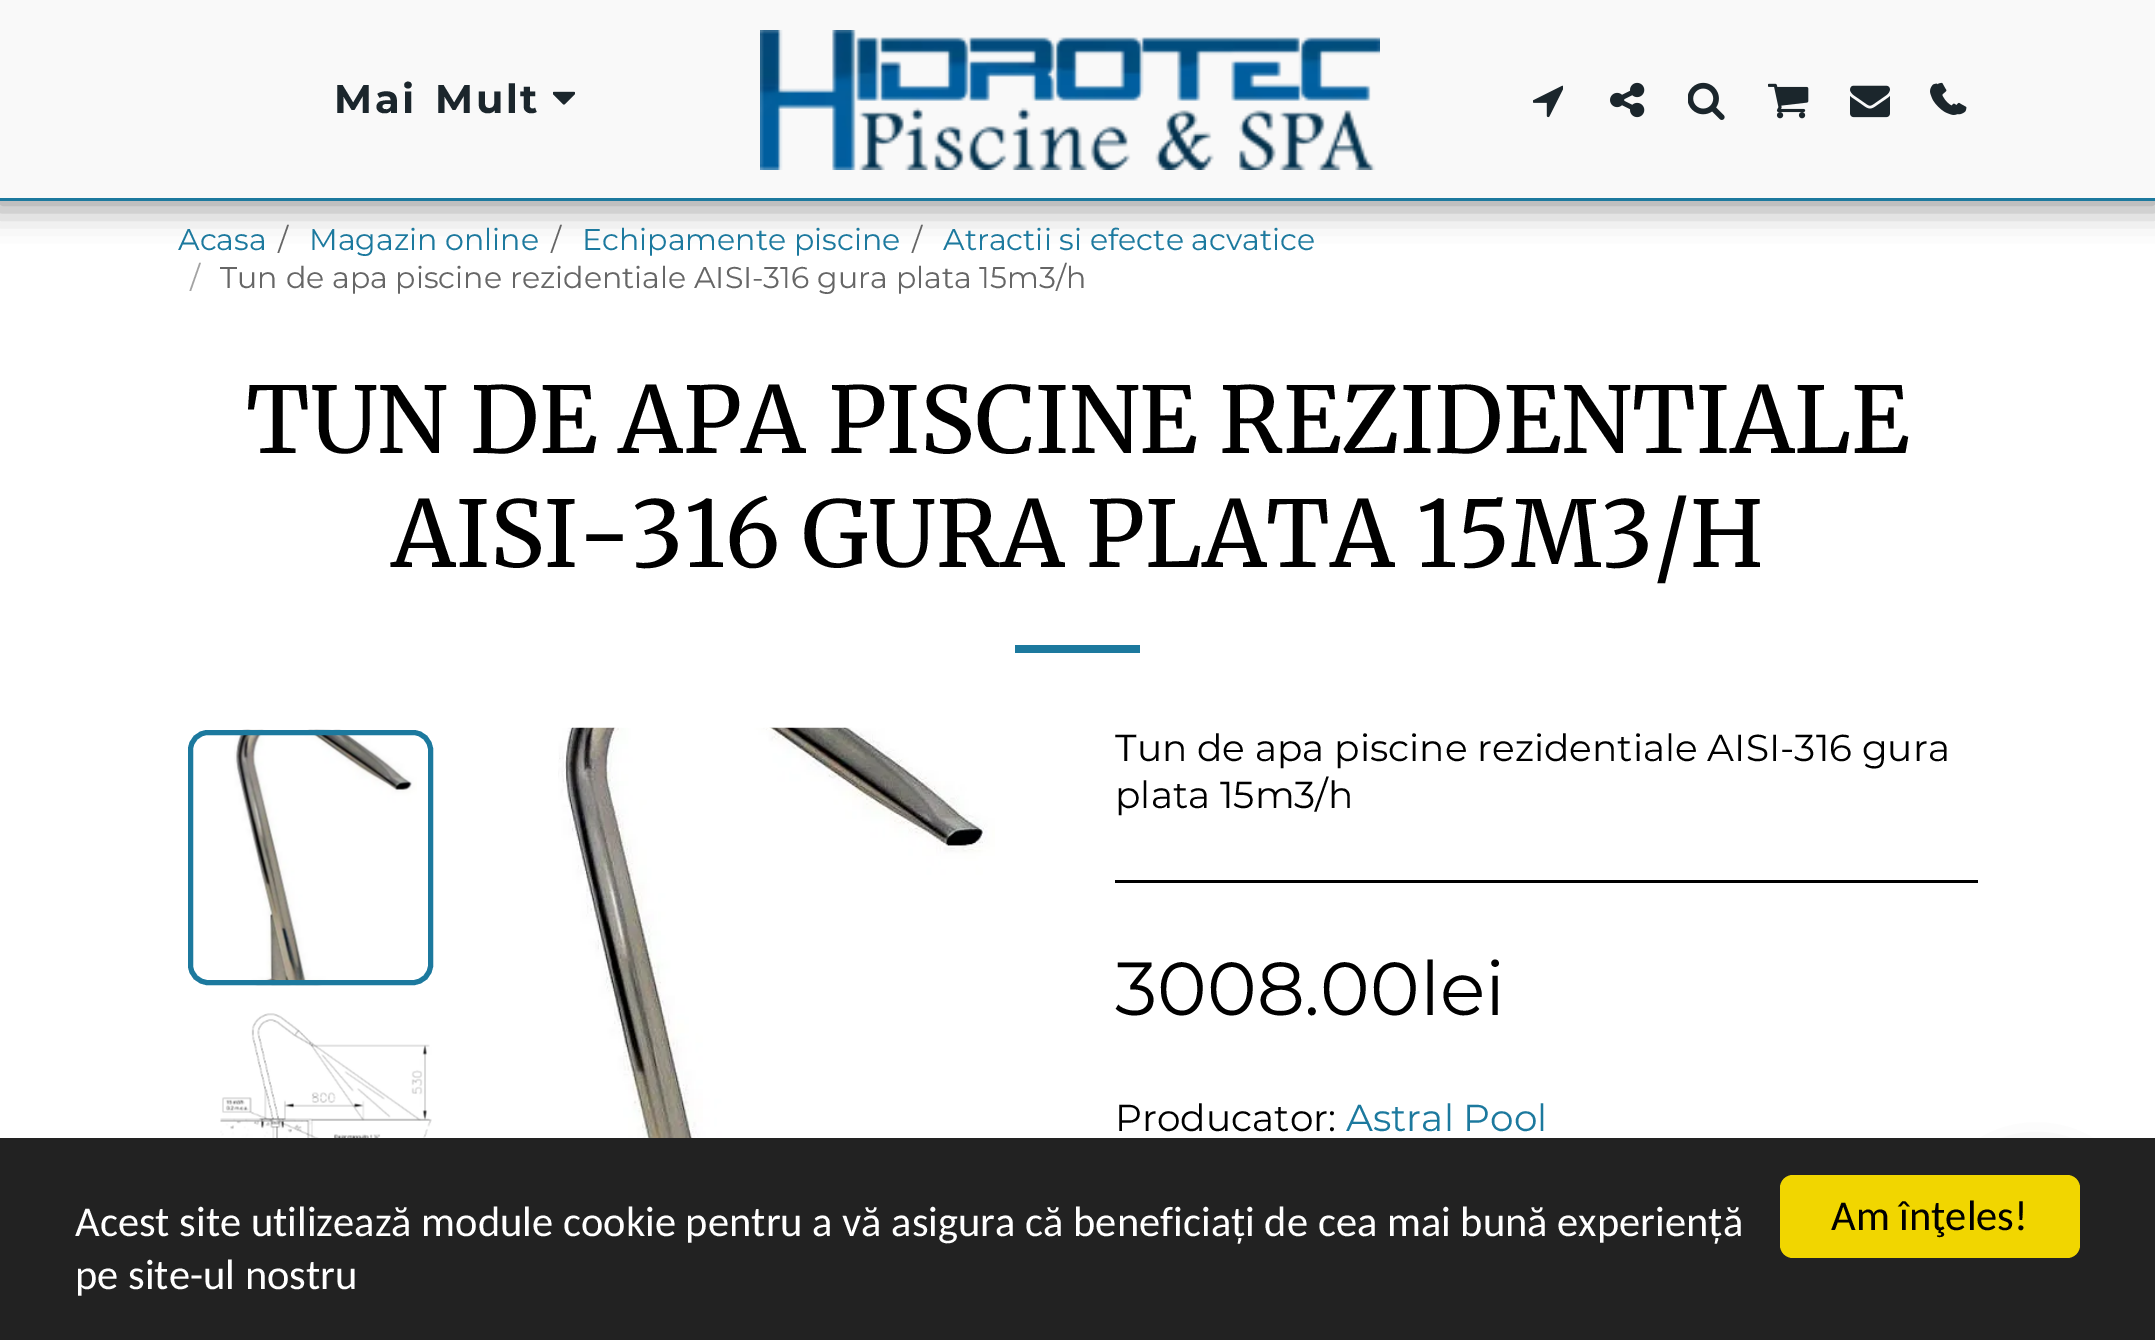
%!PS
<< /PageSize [2155 1340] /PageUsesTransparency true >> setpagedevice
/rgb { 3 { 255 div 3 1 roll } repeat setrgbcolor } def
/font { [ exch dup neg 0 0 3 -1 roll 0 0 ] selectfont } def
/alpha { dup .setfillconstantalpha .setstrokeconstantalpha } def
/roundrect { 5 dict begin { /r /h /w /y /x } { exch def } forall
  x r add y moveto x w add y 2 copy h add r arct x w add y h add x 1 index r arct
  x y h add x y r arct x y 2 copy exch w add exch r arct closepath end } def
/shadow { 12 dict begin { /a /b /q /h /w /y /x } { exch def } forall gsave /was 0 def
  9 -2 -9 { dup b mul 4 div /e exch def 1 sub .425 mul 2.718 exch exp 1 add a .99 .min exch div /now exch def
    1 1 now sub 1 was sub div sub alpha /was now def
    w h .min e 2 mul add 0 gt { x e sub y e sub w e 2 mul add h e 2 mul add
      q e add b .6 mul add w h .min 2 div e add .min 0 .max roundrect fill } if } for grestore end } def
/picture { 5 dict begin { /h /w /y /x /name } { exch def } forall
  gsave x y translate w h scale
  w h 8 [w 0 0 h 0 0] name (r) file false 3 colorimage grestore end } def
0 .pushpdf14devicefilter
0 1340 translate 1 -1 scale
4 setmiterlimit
255 255 255 rgb
0 0 2155 1340 rectfill
0 0 0 rgb
-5 0 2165 210 0 15 0.35 shadow
249 249 249 rgb
0 0 2155 198 rectfill
28 121 158 rgb
0 198 2155 3 rectfill
(img/1.rgb) 553 91 22 14 picture
(img/2.rgb) 760 30 620 140 picture
(img/3.rgb) 1533 85 30 33 picture
(img/4.rgb) 1610 82 35 36 picture
(img/5.rgb) 1688 82 37 38 picture
(img/6.rgb) 1768 83 41 36 picture
(img/7.rgb) 1850 85 40 33 picture
(img/8.rgb) 1937 82 30 33 picture
(img/9.rgb) 1930 83 28 32 picture
1015 645 125 8 rectfill
(img/10.rgb) 234 729 183 257 picture
5 setlinewidth
190.5 732.5 240 250 17.5 roundrect stroke
(img/11.rgb) 188 1013 244 125 picture
(img/12.rgb) 558 727 437 411 picture
0 0 0 rgb
1115 880 863 3 rectfill
1968 1165 137 138 68.5 19 0.35 shadow
34 34 34 rgb
0 1138 2155 202 rectfill
241 214 0 rgb
1780 1175 300 83 13 roundrect fill
/Montserrat-Bold 40 font
27 38 44 rgb
334 113 moveto 5 0 32 2.5 0 (Mai Mult) awidthshow
/Montserrat-Regular 30 font
28 121 158 rgb
178 250 moveto (Acasa) show
102 102 102 rgb
278 250 moveto (/) show
28 121 158 rgb
309 250 moveto (Magazin online) show
102 102 102 rgb
551 250 moveto (/) show
28 121 158 rgb
582 250 moveto (Echipamente piscine) show
102 102 102 rgb
912 250 moveto (/) show
28 121 158 rgb
943 250 moveto (Atractii si efecte acvatice) show
163 163 163 rgb
190 288 moveto (/) show
102 102 102 rgb
220 288 moveto (Tun de apa piscine rezidentiale AISI-316 gura plata 15m3/h) show
/Merriweather-Regular 91.5 font
0 0 0 rgb
246 453 moveto (TUN DE APA PISCINE REZIDENTIALE) show
391 567 moveto (AISI-316 GURA PLATA 15M3/H) show
/Montserrat-Regular 37.5 font
1115 761 moveto (Tun de apa piscine rezidentiale AISI-316 gura) show
1115 808 moveto (plata 15m3/h) show
/Montserrat-Regular 75 font
1115 1015 moveto (3008.00lei) show
/Montserrat-Regular 37.5 font
1115 1131 moveto (Producator:) show
28 121 158 rgb
1346 1131 moveto (Astral Pool) show
/Carlito-Regular 42.5 font
255 255 255 rgb
75 1236 moveto (Acest site utilizează module cookie pentru a vă asigura că beneficiați de cea mai bună experiență) show
75 1289 moveto (pe site-ul nostru) show
0 0 0 rgb
1831 1230 moveto (Am înţeles!) show
.poppdf14devicefilter showpage
